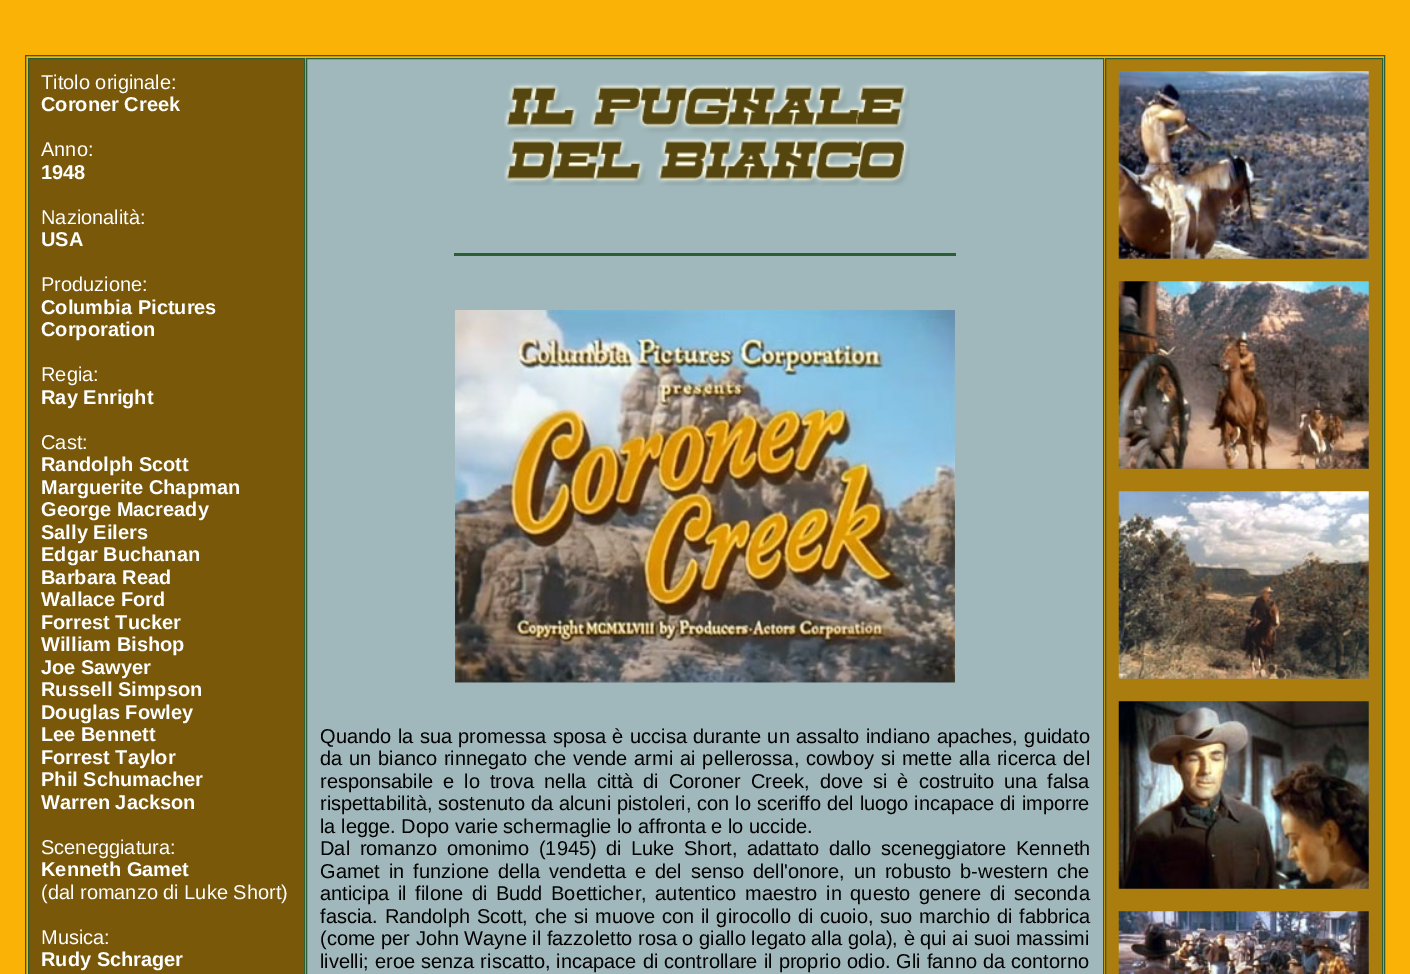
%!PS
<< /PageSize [1410 974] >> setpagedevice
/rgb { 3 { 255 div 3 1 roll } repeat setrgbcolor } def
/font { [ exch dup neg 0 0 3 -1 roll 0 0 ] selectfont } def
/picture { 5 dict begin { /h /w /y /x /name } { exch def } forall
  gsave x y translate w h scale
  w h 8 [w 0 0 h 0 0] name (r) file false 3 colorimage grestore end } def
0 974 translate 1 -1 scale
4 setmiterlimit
250 178 7 rgb
0 0 1410 974 rectfill
45 94 51 rgb
25.5 55.5 1359 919 rectstroke
121 88 10 rgb
28.5 58.5 moveto 304.5 58.5 lineto 304.5 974.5 lineto 28.5 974.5 lineto closepath gsave fill grestore
45 94 51 rgb
stroke
160 184 187 rgb
306.5 58.5 moveto 1103.5 58.5 lineto 1103.5 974.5 lineto 306.5 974.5 lineto closepath gsave fill grestore
45 94 51 rgb
stroke
(img/1.rgb) 504 83 406 103 picture
454 253 502 3 rectfill
(img/2.rgb) 455 310 500 373 picture
171 125 14 rgb
1105.5 58.5 moveto 1382.5 58.5 lineto 1382.5 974.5 lineto 1105.5 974.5 lineto closepath gsave fill grestore
45 94 51 rgb
stroke
(img/3.rgb) 1118 71 251 188 picture
(img/4.rgb) 1118 281 251 188 picture
(img/5.rgb) 1118 491 251 188 picture
(img/6.rgb) 1118 701 251 188 picture
(img/7.rgb) 1118 911 251 63 picture
/LiberationSans-Regular 20 font
255 255 255 rgb
41 89 moveto (Titolo originale:) show
/LiberationSans-Bold 20 font
41 111 moveto (Coroner Creek) show
/LiberationSans-Regular 20 font
41 156 moveto (Anno:) show
/LiberationSans-Bold 20 font
41 179 moveto (1948) show
/LiberationSans-Regular 20 font
41 224 moveto (Nazionalità:) show
/LiberationSans-Bold 20 font
41 246 moveto (USA) show
/LiberationSans-Regular 20 font
41 291 moveto (Produzione:) show
/LiberationSans-Bold 20 font
41 314 moveto (Columbia Pictures) show
41 336 moveto (Corporation) show
/LiberationSans-Regular 20 font
41 381 moveto (Regia:) show
/LiberationSans-Bold 20 font
41 404 moveto (Ray Enright) show
/LiberationSans-Regular 20 font
41 449 moveto (Cast:) show
/LiberationSans-Bold 20 font
[
  [(Randolph Scott) 41 471]
  [(Marguerite Chapman) 41 494]
  [(George Macready) 41 516]
  [(Sally Eilers) 41 539]
  [(Edgar Buchanan) 41 561]
  [(Barbara Read) 41 584]
  [(Wallace Ford) 41 606]
  [(Forrest Tucker) 41 629]
  [(William Bishop) 41 651]
  [(Joe Sawyer) 41 674]
  [(Russell Simpson) 41 696]
  [(Douglas Fowley) 41 719]
  [(Lee Bennett) 41 741]
  [(Forrest Taylor) 41 764]
  [(Phil Schumacher) 41 786]
  [(Warren Jackson) 41 809]
] { aload pop moveto show } forall
/LiberationSans-Regular 20 font
41 854 moveto (Sceneggiatura:) show
/LiberationSans-Bold 20 font
41 876 moveto (Kenneth Gamet) show
/LiberationSans-Regular 20 font
41 899 moveto (\(dal romanzo di Luke Short\)) show
41 944 moveto (Musica:) show
/LiberationSans-Bold 20 font
41 966 moveto (Rudy Schrager) show
/LiberationSans-Regular 20 font
0 0 0 rgb
320 743 moveto 0.9 0 32 (Quando la sua promessa sposa è uccisa durante un assalto indiano apaches, guidato) widthshow
320 765 moveto 1.25 0 32 (da un bianco rinnegato che vende armi ai pellerossa, cowboy si mette alla ricerca del) widthshow
320 788 moveto 4.4 0 32 (responsabile e lo trova nella città di Coroner Creek, dove si è costruito una falsa) widthshow
320 810 moveto 0.3 0 32 (rispettabilità, sostenuto da alcuni pistoleri, con lo sceriffo del luogo incapace di imporre) widthshow
320 833 moveto (la legge. Dopo varie schermaglie lo affronta e lo uccide.) show
320 855 moveto 4 0 32 (Dal romanzo omonimo \(1945\) di Luke Short, adattato dallo sceneggiatore Kenneth) widthshow
320 878 moveto 3.4 0 32 (Gamet in funzione della vendetta e del senso dell'onore, un robusto b-western che) widthshow
320 900 moveto 3.1 0 32 (anticipa il filone di Budd Boetticher, autentico maestro in questo genere di seconda) widthshow
320 923 moveto 1.2 0 32 (fascia. Randolph Scott, che si muove con il girocollo di cuoio, suo marchio di fabbrica) widthshow
320 945 moveto (\(come per John Wayne il fazzoletto rosa o giallo legato alla gola\), è qui ai suoi massimi) show
320 968 moveto 0.5 0 32 (livelli; eroe senza riscatto, incapace di controllare il proprio odio. Gli fanno da contorno) widthshow
showpage
